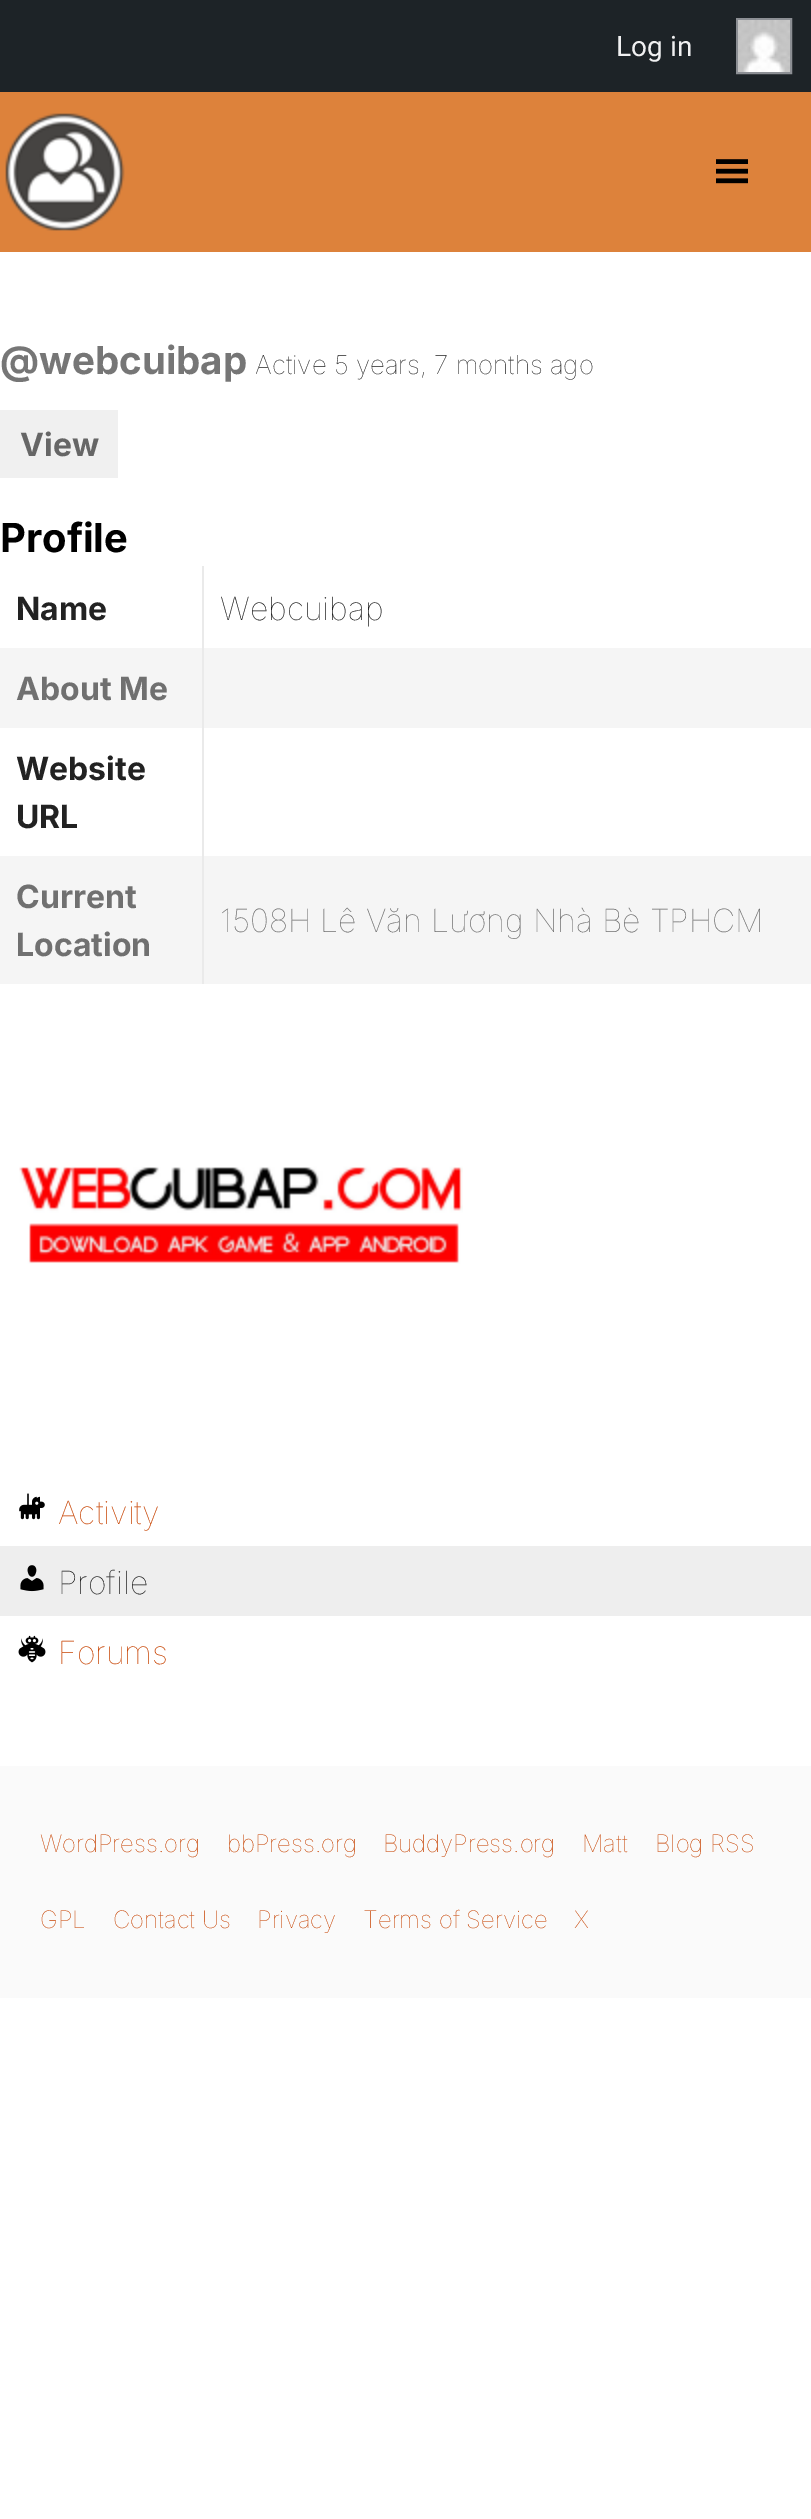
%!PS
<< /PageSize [811 2519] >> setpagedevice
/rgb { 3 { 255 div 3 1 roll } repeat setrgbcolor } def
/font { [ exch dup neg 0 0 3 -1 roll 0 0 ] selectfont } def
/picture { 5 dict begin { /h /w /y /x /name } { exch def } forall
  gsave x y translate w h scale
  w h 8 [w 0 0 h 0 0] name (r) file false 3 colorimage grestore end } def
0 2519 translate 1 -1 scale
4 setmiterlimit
255 255 255 rgb
0 0 811 2519 rectfill
29 35 39 rgb
0 0 811 92 rectfill
140 143 148 rgb
2 setlinewidth
737 19 54 54 rectstroke
(img/1.rgb) 738 20 52 52 picture
221 130 59 rgb
0 92 811 160 rectfill
(img/2.rgb) 5 113 120 118 picture
(img/3.rgb) 716 159 32 25 picture
[
  [0 410 118 68 240 240 240]
  [0 648 202 80 245 245 245]
  [204 648 607 80 245 245 245]
  [0 856 202 128 245 245 245]
  [202 566 2 418 234 234 234]
  [204 856 607 128 245 245 245]
] { aload pop rgb rectfill } forall
(img/4.rgb) 19 1166 444 98 picture
(img/5.rgb) 19 1493 26 27 picture
238 238 238 rgb
0 1546 811 70 rectfill
(img/6.rgb) 20 1565 24 27 picture
(img/7.rgb) 18 1635 28 28 picture
250 250 250 rgb
0 1766 811 232 rectfill
/Roboto-Regular 28 font
240 240 241 rgb
616 56 moveto (Log in) show
/Inter-Bold 38.5 font
118 118 118 rgb
0 374 moveto (@webcuibap) show
/Inter-Thin 26 font
34 34 34 rgb
255 374 moveto (Active 5 years, 7 months ago) show
/Inter-Bold 32 font
102 102 102 rgb
20 456 moveto (View) show
/Inter-Bold 40 font
0 0 0 rgb
0 552 moveto (Profile) show
/Inter-Bold 32 font
34 34 34 rgb
16 620 moveto (Name) show
/Inter-Thin 32 font
220 620 moveto (Webcuibap) show
/Inter-Bold 32 font
112 112 112 rgb
16 700 moveto (About Me) show
34 34 34 rgb
16 780 moveto (Website) show
16 828 moveto (URL) show
112 112 112 rgb
16 908 moveto (Current) show
16 956 moveto (Location) show
/Inter-Thin 32 font
220 932 moveto (1508H Lê Văn Lương Nhà Bè TPHCM) show
199 66 0 rgb
58 1524 moveto (Activity) show
34 34 34 rgb
58 1594 moveto (Profile) show
199 66 0 rgb
58 1664 moveto (Forums) show
/Inter-Thin 24 font
[
  [(WordPress.org) 40 1852]
  [(bbPress.org) 227 1852]
  [(BuddyPress.org) 383 1852]
  [(Matt) 582 1852]
  [(Blog RSS) 655 1852]
  [(GPL) 40 1928]
  [(Contact Us) 113 1928]
  [(Privacy) 257 1928]
  [(Terms of Service) 363 1928]
  [(X) 574 1928]
] { aload pop moveto show } forall
showpage
